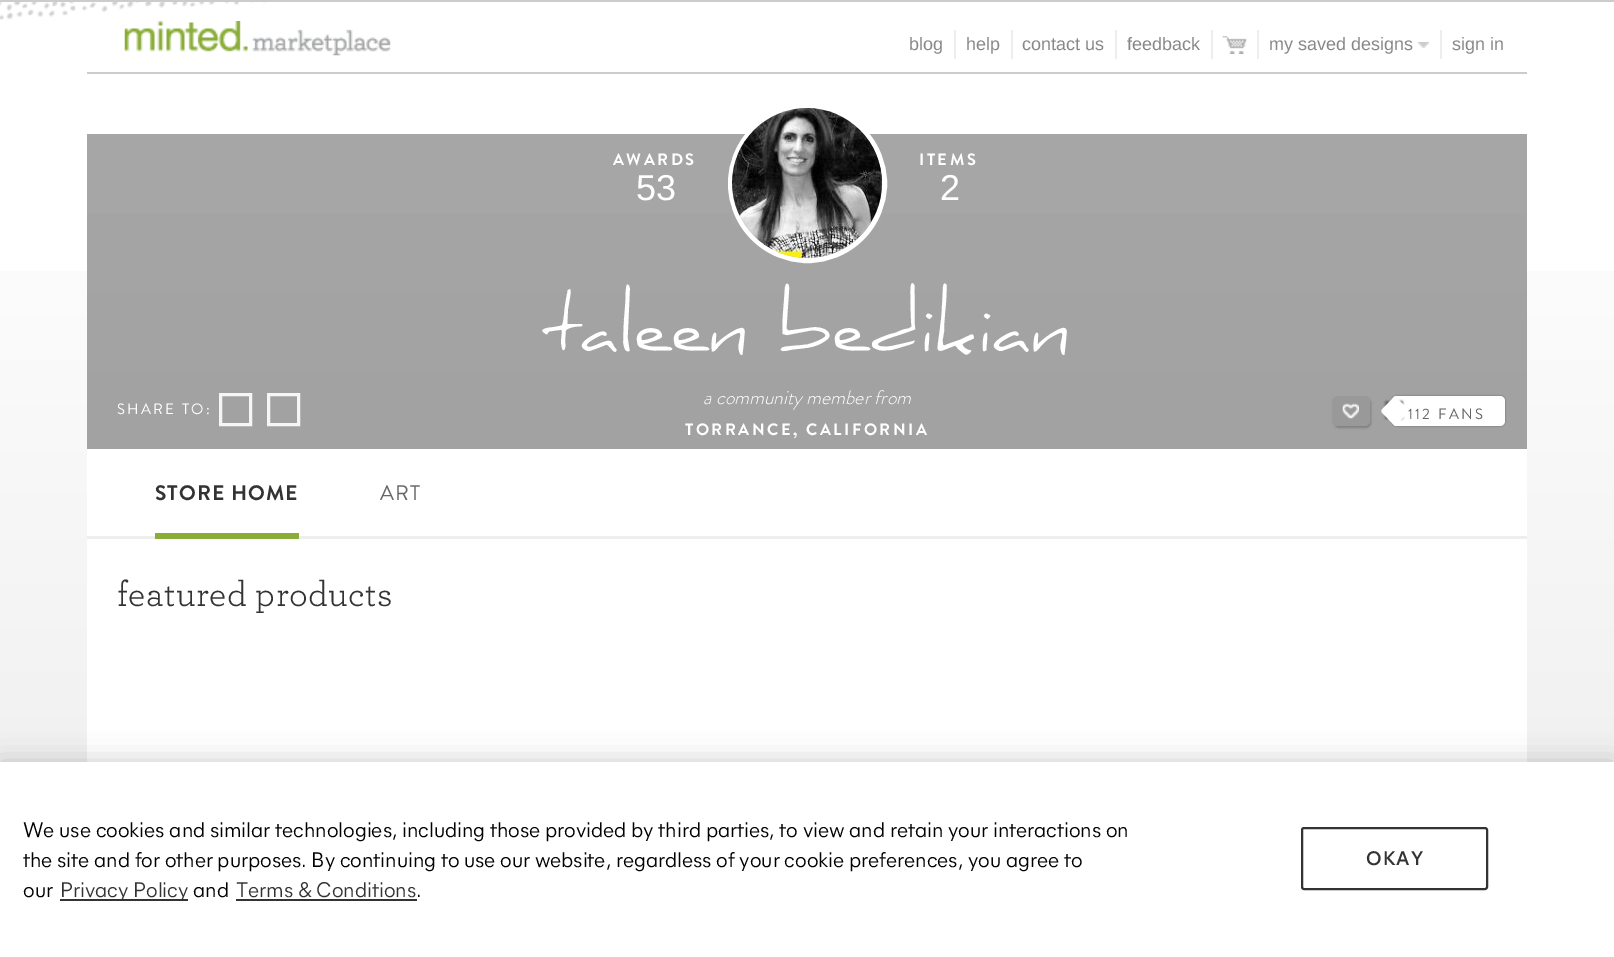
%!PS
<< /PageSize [1614 957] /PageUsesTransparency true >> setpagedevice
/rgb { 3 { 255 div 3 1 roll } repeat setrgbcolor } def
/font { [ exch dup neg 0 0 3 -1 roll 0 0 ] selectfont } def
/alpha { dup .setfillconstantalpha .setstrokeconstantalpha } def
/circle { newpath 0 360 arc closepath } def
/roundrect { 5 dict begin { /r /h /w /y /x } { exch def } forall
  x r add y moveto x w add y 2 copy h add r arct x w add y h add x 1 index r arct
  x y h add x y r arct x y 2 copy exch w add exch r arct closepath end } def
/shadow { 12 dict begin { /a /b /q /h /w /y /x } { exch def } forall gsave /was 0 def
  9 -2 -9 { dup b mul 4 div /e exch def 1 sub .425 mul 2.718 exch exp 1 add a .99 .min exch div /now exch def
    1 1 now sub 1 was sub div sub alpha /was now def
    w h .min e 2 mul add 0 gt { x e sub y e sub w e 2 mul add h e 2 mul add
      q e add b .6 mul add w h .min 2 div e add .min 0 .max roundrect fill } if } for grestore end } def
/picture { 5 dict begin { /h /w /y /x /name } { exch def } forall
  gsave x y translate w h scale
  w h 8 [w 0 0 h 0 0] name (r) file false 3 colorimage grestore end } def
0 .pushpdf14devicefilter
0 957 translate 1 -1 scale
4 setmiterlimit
255 255 255 rgb
0 0 1614 957 rectfill
gsave 0 271 moveto 1614 271 lineto 1614 762 lineto 0 762 lineto closepath clip newpath
<< /ShadingType 2 /ColorSpace /DeviceRGB /Coords [807 0 807 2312] /Extend [true true] /Function << /FunctionType 3 /Domain [0 1] /Functions [<< /FunctionType 2 /Domain [0 1] /C0 [1 1 1] /C1 [1 1 1] /N 1 >> << /FunctionType 2 /Domain [0 1] /C0 [1 1 1] /C1 [0.933 0.933 0.933] /N 1 >> << /FunctionType 2 /Domain [0 1] /C0 [0.933 0.933 0.933] /C1 [0.933 0.933 0.933] /N 1 >>] /Bounds [0.07 0.39] /Encode [0 1 0 1 0 1] >> >> shfill grestore
gsave 87 134 moveto 1527 134 lineto 1527 449 lineto 87 449 lineto closepath clip newpath
<< /ShadingType 2 /ColorSpace /DeviceRGB /Coords [807 0 807 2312] /Extend [true true] /Function << /FunctionType 3 /Domain [0 1] /Functions [<< /FunctionType 2 /Domain [0 1] /C0 [0.651 0.651 0.651] /C1 [0.651 0.651 0.651] /N 1 >> << /FunctionType 2 /Domain [0 1] /C0 [0.651 0.651 0.651] /C1 [0.608 0.608 0.608] /N 1 >> << /FunctionType 2 /Domain [0 1] /C0 [0.608 0.608 0.608] /C1 [0.608 0.608 0.608] /N 1 >>] /Bounds [0.07 0.39] /Encode [0 1 0 1 0 1] >> >> shfill grestore
204 204 204 rgb
87 72 1440 2 rectfill
(img/1.rgb) 0 2 267 18 picture
(img/2.rgb) 124 21 267 35 picture
[
  [954 30 2 29 238 238 238]
  [1011 30 2 29 238 238 238]
  [1115 30 2 29 238 238 238]
  [1211 30 2 29 238 238 238]
] { aload pop rgb rectfill } forall
(img/3.rgb) 1222 36 25 18 picture
1257 30 2 29 rectfill
(img/4.rgb) 1417 42 13 6 picture
1440 30 2 29 rectfill
255 255 255 rgb
5 setlinewidth
807.5 183.5 77 circle stroke
(img/5.rgb) 732 108 150 150 picture
246 246 246 rgb
3 setlinewidth
220.5 394.5 30 30 rectstroke
268.5 394.5 30 30 rectstroke
0 0 0 rgb
1334 398 37 30 5 1 0.2 shadow
153 153 153 rgb
1332 396 38 30 5 roundrect fill
(img/6.rgb) 1342 403 17 16 picture
102 102 102 rgb
1392 396 113 30 5 1 1 shadow
255 255 255 rgb
1392 396 113 30 5 roundrect fill
102 102 102 rgb
1385 401 18 18 1.5 1 1 shadow
255 255 255 rgb
1382.5 409 moveto 1395 396 lineto 1410 411 lineto 1395 426 lineto 1382.5 413 lineto 1381 412 1381 410 1382.5 409 curveto closepath fill
[
  [87 449 1440 313 255 255 255]
  [0 0 1614 2 204 204 204]
  [87 536 1440 3 238 238 238]
  [155 533 144 6 138 173 58]
] { aload pop rgb rectfill } forall
0 0 0 rgb
0 762 1614 195 0 13.5 0.2 shadow
[
  [0 762 1614 195 255 255 255]
  [60 899 128 2 51 51 51]
  [236 899 181 2 51 51 51]
] { aload pop rgb rectfill } forall
2 setlinewidth
1302 828 185 61 2 roundrect stroke
/LiberationSans-Regular 18 font
136 136 136 rgb
[
  [(blog) 909 50]
  [(help) 966 50]
  [(contact us) 1022 50]
  [(feedback) 1127 50]
  [(my saved designs) 1269 50]
  [(sign in) 1452 50]
] { aload pop moveto show } forall
/BrandonGrotesque-Bold 16.5 font
255 255 255 rgb
613 165 moveto 2.5 0 (AWARDS) ashow
/LiberationSans-Regular 36 font
636 200 moveto (53) show
/BrandonGrotesque-Bold 16.5 font
919 165 moveto 2.5 0 (ITEMS) ashow
/LiberationSans-Regular 36 font
940 200 moveto (2) show
/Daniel-Regular 75 font
542 351 moveto (taleen bedikian) show
/BrandonGrotesque-Regular 15 font
117 414 moveto 2.25 0 (SHARE TO:) ashow
/BrandonGrotesque-LightItalic 19.5 font
703 404 moveto (a community member from) show
/BrandonGrotesque-Bold 16.5 font
685 435 moveto 2.5 0 (TORRANCE, CALIFORNIA) ashow
/BrandonGrotesque-Regular 15 font
102 102 102 rgb
1408 419 moveto 2.25 0 (112 FANS) ashow
/BrandonGrotesque-Bold 21 font
51 51 51 rgb
155 500 moveto 1 0 (STORE HOME) ashow
/BrandonGrotesque-Regular 21 font
102 102 102 rgb
380 500 moveto 1 0 (ART) ashow
/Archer-Regular 36 font
51 51 51 rgb
117 606 moveto 0.4 0 (featured products) ashow
/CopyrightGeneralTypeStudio-Regular 21 font
0 0 0 rgb
[
  [(We use cookies and similar technologies, including those provided by third parties, to view and retain your interactions on) 23 837]
  [(the site and for other purposes. By continuing to use our website, regardless of your cookie preferences, you agree to) 23 867]
  [(our) 23 897]
] { aload pop moveto show } forall
51 51 51 rgb
60 897 moveto (Privacy Policy) show
0 0 0 rgb
193 897 moveto (and) show
51 51 51 rgb
236 897 moveto (Terms & Conditions) show
0 0 0 rgb
416 897 moveto (.) show
/CopyrightGeneralTypeStudio-SemiBold 19.5 font
51 51 51 rgb
1366 865 moveto 1 0 (OKAY) ashow
.poppdf14devicefilter showpage
